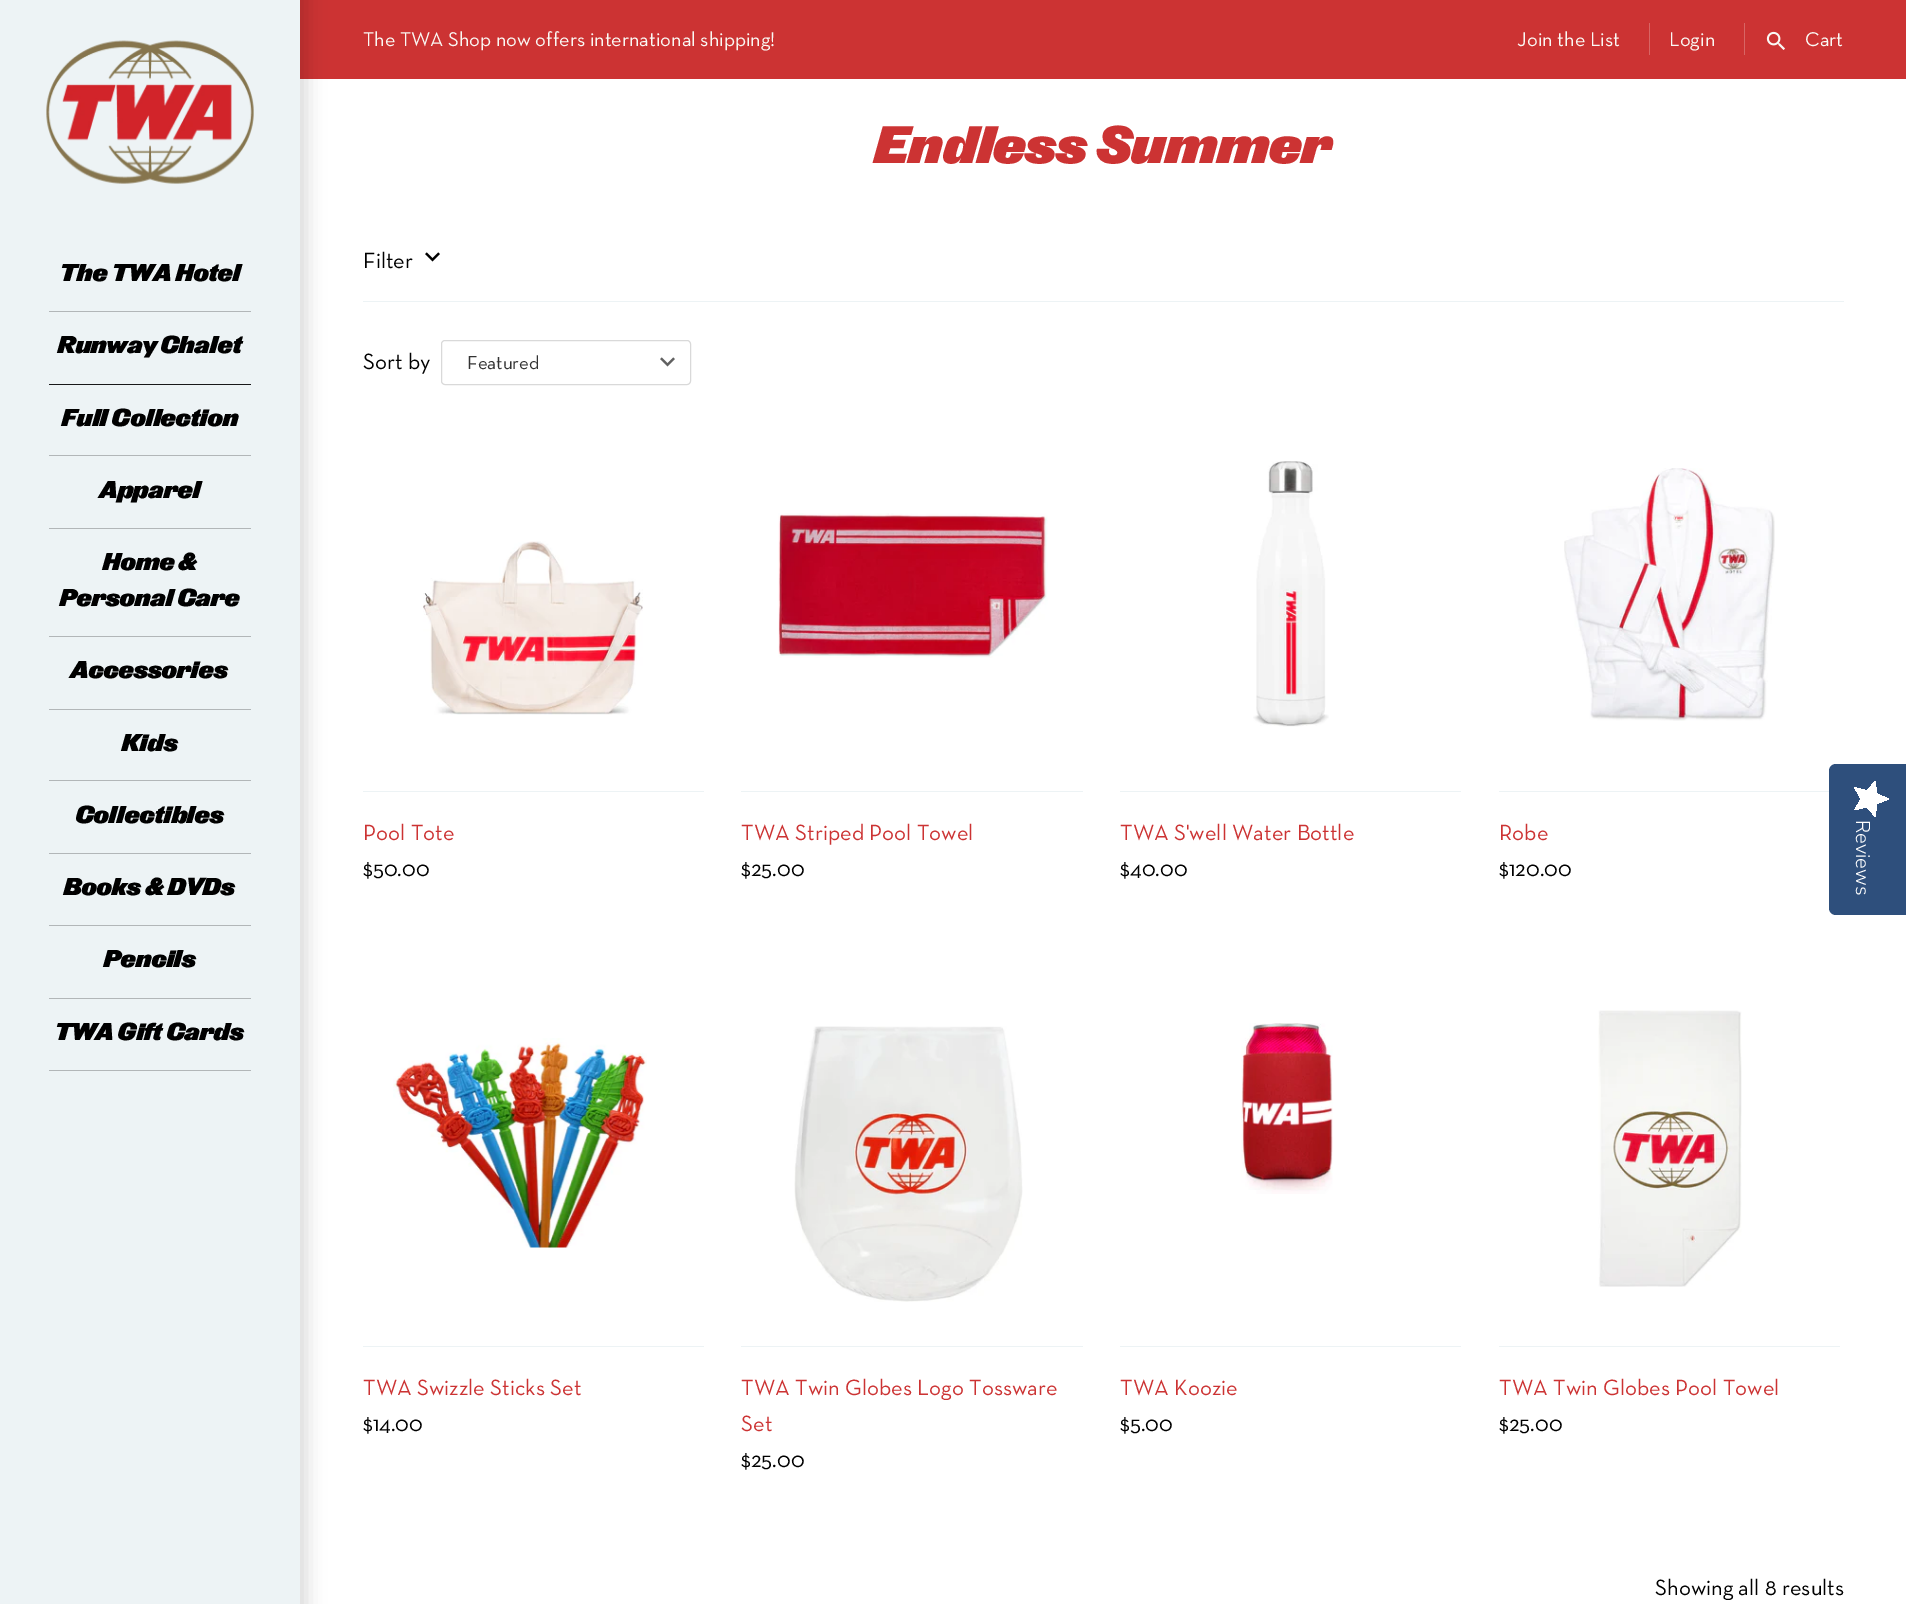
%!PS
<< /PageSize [1906 1604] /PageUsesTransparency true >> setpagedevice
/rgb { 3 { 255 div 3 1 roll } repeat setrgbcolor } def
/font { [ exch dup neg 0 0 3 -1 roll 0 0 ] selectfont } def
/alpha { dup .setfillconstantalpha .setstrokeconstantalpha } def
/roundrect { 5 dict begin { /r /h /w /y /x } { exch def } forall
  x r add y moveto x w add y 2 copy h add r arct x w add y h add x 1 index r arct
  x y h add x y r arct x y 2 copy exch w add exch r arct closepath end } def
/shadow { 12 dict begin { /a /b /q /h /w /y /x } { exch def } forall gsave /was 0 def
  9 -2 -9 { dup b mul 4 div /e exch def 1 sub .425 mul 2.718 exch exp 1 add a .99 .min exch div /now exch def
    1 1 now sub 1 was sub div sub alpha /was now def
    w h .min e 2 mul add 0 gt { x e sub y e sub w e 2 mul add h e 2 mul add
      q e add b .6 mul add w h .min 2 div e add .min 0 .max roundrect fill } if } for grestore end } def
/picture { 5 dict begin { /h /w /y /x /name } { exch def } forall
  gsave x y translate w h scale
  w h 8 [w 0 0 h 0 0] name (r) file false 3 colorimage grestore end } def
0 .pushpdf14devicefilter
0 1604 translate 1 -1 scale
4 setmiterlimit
255 255 255 rgb
0 0 1906 1604 rectfill
[
  [300 0 1606 79 204 51 51]
  [1649 23 1 32 216 101 100]
  [1744 23 1 32 216 101 100]
] { aload pop rgb rectfill } forall
(img/1.rgb) 1766 31 19 19 picture
0 0 0 rgb
-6 -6 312 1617 0 9.5 0.15 shadow
237 243 245 rgb
0 0 300 1604 rectfill
(img/2.rgb) 46 40 208 144 picture
[
  [49 311 202 1 178 182 184]
  [49 384 202 1 24 24 25]
  [49 455 202 1 178 182 184]
  [49 528 202 1 178 182 184]
  [49 636 202 1 178 182 184]
  [49 709 202 1 178 182 184]
  [49 780 202 1 178 182 184]
  [49 853 202 1 178 182 184]
  [49 925 202 1 178 182 184]
  [49 998 202 1 178 182 184]
  [49 1070 202 1 178 182 184]
  [363 301 1481 1 237 243 245]
] { aload pop rgb rectfill } forall
(img/3.rgb) 425 252 15 10 picture
(img/4.rgb) 660 357 15 10 picture
217 217 217 rgb
441.5 340.5 249 44 3.5 roundrect stroke
(img/5.rgb) 423 541 220 174 picture
237 243 245 rgb
363 791 341 1 rectfill
(img/6.rgb) 778 513 270 145 picture
741 791 342 1 rectfill
(img/7.rgb) 1253 461 76 266 picture
1120 791 341 1 rectfill
(img/8.rgb) 1564 468 211 253 picture
1499 791 330 1 rectfill
(img/9.rgb) 393 1038 254 210 picture
363 1346 341 1 rectfill
(img/10.rgb) 794 1026 229 276 picture
741 1346 342 1 rectfill
(img/11.rgb) 1241 1023 92 171 picture
1120 1346 341 1 rectfill
(img/12.rgb) 1598 1010 144 277 picture
1499 1346 341 1 rectfill
46 79 124 rgb
1906 764 moveto 1906 915 lineto 1836 915 lineto 1832 915 1829 912 1829 908 curveto 1829 771 lineto 1829 767 1832 764 1836 764 curveto closepath fill
gsave 1861 799 moveto 1854.5 810 lineto 1867 807 lineto 1875.5 817 lineto 1876.5 804 lineto 1888.5 799 lineto 1876.5 793.5 lineto 1875.5 781 lineto 1867 790.5 lineto 1854.5 787.5 lineto closepath clip newpath
<< /ShadingType 2 /ColorSpace /DeviceRGB /Coords [1889 781 1889 817] /Extend [true true] /Function << /FunctionType 2 /Domain [0 1] /C0 [1 1 1] /C1 [1 1 1] /N 1 >> >> shfill grestore
/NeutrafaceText-Regular 20.25 font
250 249 245 rgb
363 46 moveto -0.25 0 32 (The TWA Shop now offers international shipping!) widthshow
[
  [(Join the List) 1517 46]
  [(Login) 1669 46]
  [(Cart) 1805 46]
] { aload pop moveto show } forall
/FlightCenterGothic-BoldItalic 22 font
0 0 0 rgb
[
  [(The TWA Hotel) 60 281]
  [(Runway Chalet) 58 353]
  [(Full Collection) 62 426]
  [(Apparel) 100 498]
  [(Home &) 103 570]
  [(Personal Care) 60 606]
  [(Accessories) 71 678]
  [(Kids) 122 751]
  [(Collectibles) 76 823]
  [(Books & DVDs) 64 895]
  [(Pencils) 104 967]
  [(TWA Gift Cards) 55 1040]
] { aload pop moveto show } forall
/FlightCenterGothic-BoldItalic 47.25 font
204 51 51 rgb
875 163 moveto (Endless Summer) show
/NeutrafaceText-Regular 22.5 font
0 0 0 rgb
363 268 moveto (Filter) show
363 369 moveto (Sort by) show
/NeutrafaceText-Regular 19 font
51 51 51 rgb
467 369 moveto (Featured) show
/NeutrafaceText-Regular 22.5 font
204 51 51 rgb
363 840 moveto (Pool Tote) show
0 0 0 rgb
363 876 moveto ($50.00) show
204 51 51 rgb
741 840 moveto (TWA Striped Pool Towel) show
0 0 0 rgb
741 876 moveto ($25.00) show
204 51 51 rgb
1120 840 moveto (TWA S'well Water Bottle) show
0 0 0 rgb
1120 876 moveto ($40.00) show
204 51 51 rgb
1499 840 moveto (Robe) show
0 0 0 rgb
1499 876 moveto ($120.00) show
204 51 51 rgb
363 1395 moveto (TWA Swizzle Sticks Set) show
0 0 0 rgb
363 1431 moveto ($14.00) show
204 51 51 rgb
741 1395 moveto (TWA Twin Globes Logo Tossware) show
741 1431 moveto (Set) show
0 0 0 rgb
741 1467 moveto ($25.00) show
204 51 51 rgb
1120 1395 moveto (TWA Koozie) show
0 0 0 rgb
1120 1431 moveto ($5.00) show
204 51 51 rgb
1499 1395 moveto (TWA Twin Globes Pool Towel) show
0 0 0 rgb
1499 1431 moveto ($25.00) show
1655 1595 moveto (Showing all 8 results) show
/NunitoSans-Light 20 font
255 255 255 rgb
gsave 1856 820 translate 90 rotate 0 0 moveto (Reviews) show grestore
.poppdf14devicefilter showpage
